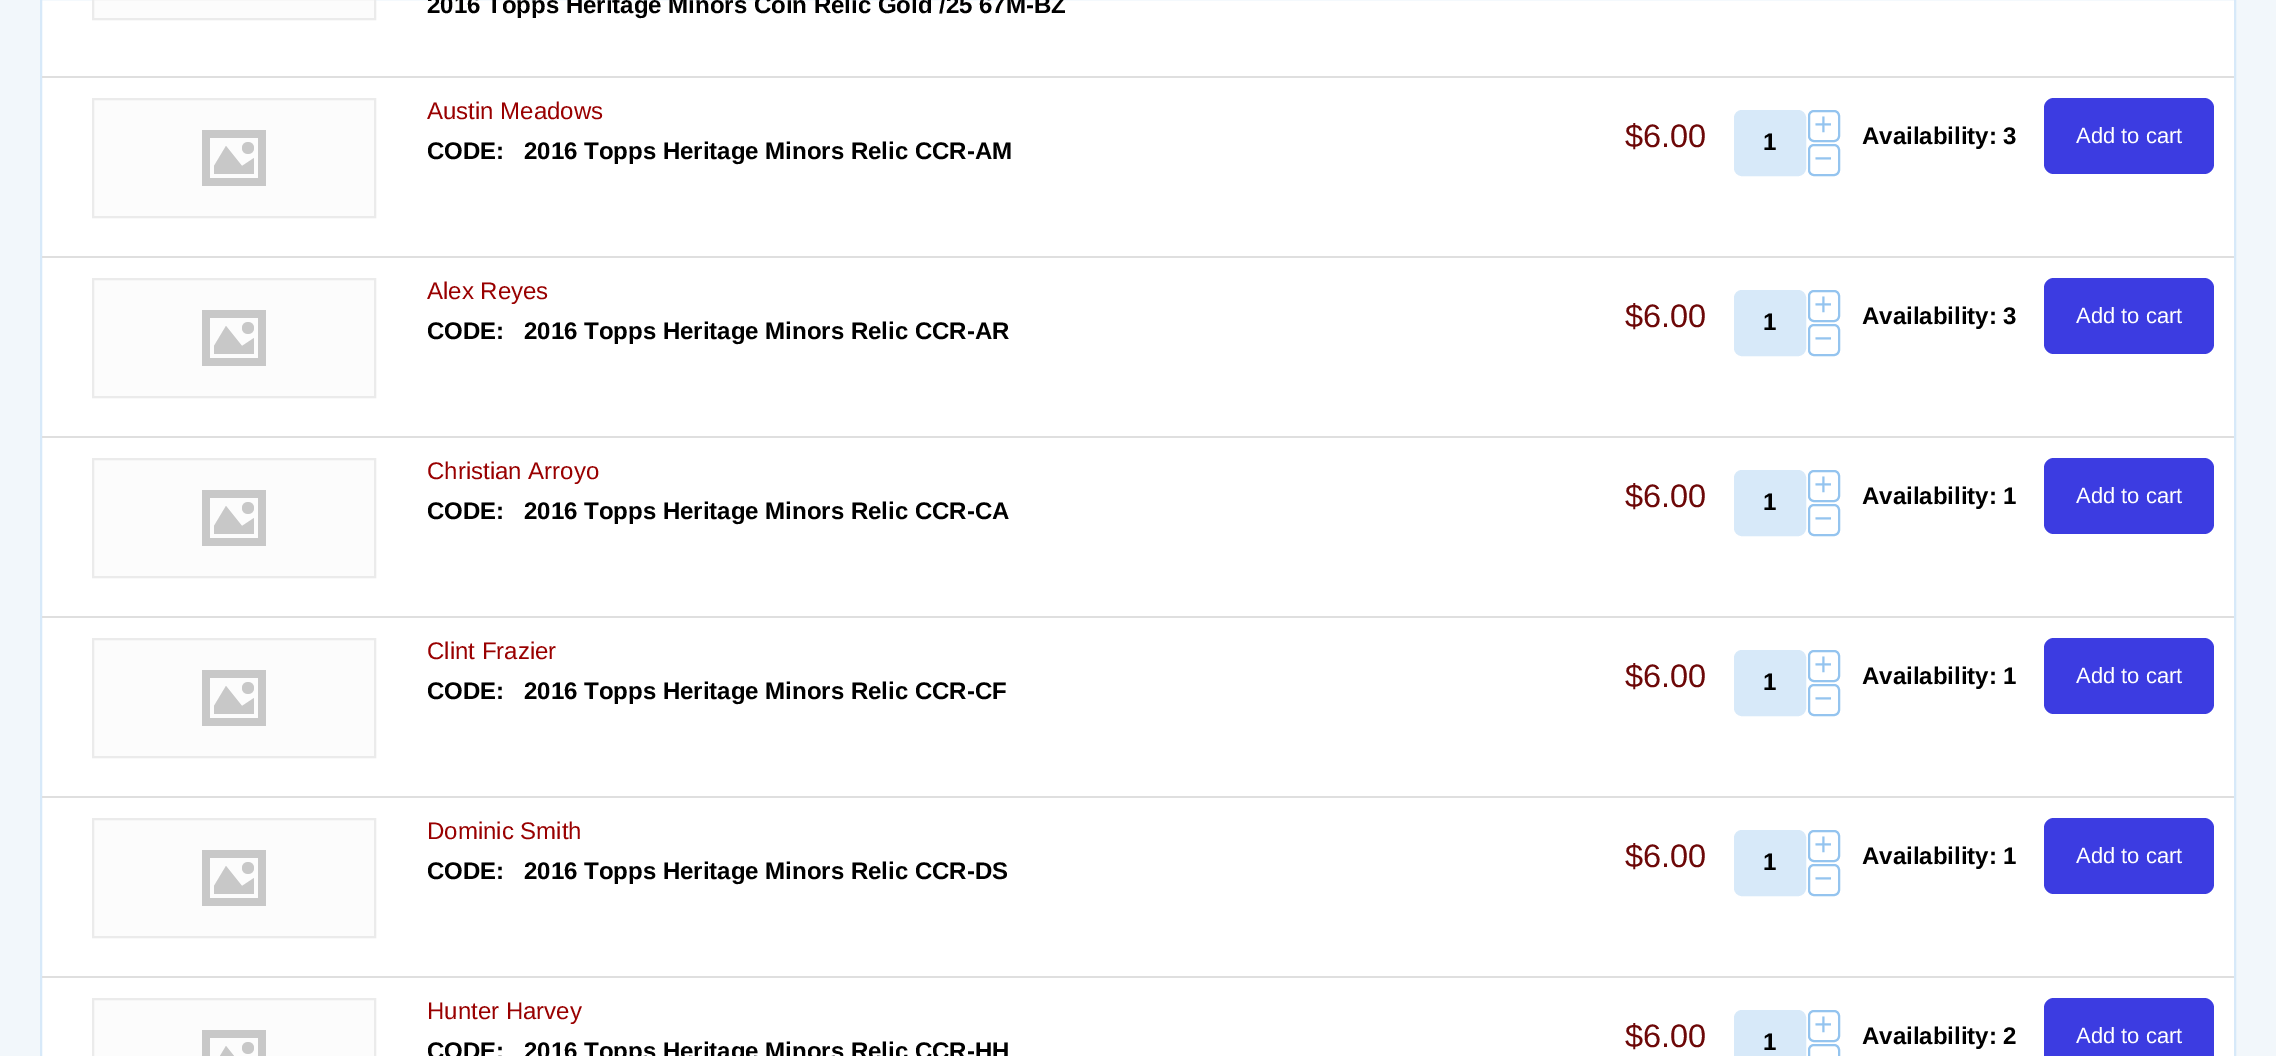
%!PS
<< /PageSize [2276 1056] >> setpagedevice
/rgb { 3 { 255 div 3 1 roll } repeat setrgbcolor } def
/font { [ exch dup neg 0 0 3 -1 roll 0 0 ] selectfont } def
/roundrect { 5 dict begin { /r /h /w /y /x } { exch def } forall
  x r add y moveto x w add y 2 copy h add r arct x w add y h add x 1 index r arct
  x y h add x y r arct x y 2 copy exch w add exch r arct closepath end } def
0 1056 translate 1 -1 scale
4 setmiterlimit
242 247 251 rgb
0 0 2276 1056 rectfill
255 255 255 rgb
41 -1 moveto 2235 -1 lineto 2235 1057 lineto 41 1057 lineto closepath gsave fill grestore
215 233 249 rgb
2 setlinewidth
stroke
223 223 223 rgb
42 76 2192 2 rectfill
252 252 252 rgb
93 -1 moveto 375 -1 lineto 375 19 lineto 93 19 lineto closepath gsave fill grestore
235 235 235 rgb
stroke
223 223 223 rgb
42 256 2192 2 rectfill
252 252 252 rgb
93 99 moveto 375 99 lineto 375 217 lineto 93 217 lineto closepath gsave fill grestore
235 235 235 rgb
stroke
200 200 200 rgb
258 138 moveto 210 138 lineto 210 178 lineto 258 178 lineto closepath 266 130 moveto 266 186 lineto 202 186 lineto 202 130 lineto closepath 254 174 moveto 214 174 lineto 214 166 lineto 226 146 lineto 242 166 lineto 254 158 lineto closepath 242 148 moveto 242 156 254 156 254 148 curveto 254 140 242 140 242 148 curveto closepath fill
148 196 239 rgb
1809 111 30 30 5 roundrect stroke
215 233 249 rgb
1736 112 68 62 6 roundrect gsave fill grestore
4 setlinewidth
stroke
148 196 239 rgb
2 setlinewidth
1809 145 30 30 5 roundrect stroke
60 60 225 rgb
2044 98 170 76 10 roundrect fill
223 223 223 rgb
42 436 2192 2 rectfill
252 252 252 rgb
93 279 moveto 375 279 lineto 375 397 lineto 93 397 lineto closepath gsave fill grestore
235 235 235 rgb
stroke
200 200 200 rgb
258 318 moveto 210 318 lineto 210 358 lineto 258 358 lineto closepath 266 310 moveto 266 366 lineto 202 366 lineto 202 310 lineto closepath 254 354 moveto 214 354 lineto 214 346 lineto 226 326 lineto 242 346 lineto 254 338 lineto closepath 242 328 moveto 242 336 254 336 254 328 curveto 254 320 242 320 242 328 curveto closepath fill
148 196 239 rgb
1809 291 30 30 5 roundrect stroke
215 233 249 rgb
1736 292 68 62 6 roundrect gsave fill grestore
4 setlinewidth
stroke
148 196 239 rgb
2 setlinewidth
1809 325 30 30 5 roundrect stroke
60 60 225 rgb
2044 278 170 76 10 roundrect fill
223 223 223 rgb
42 616 2192 2 rectfill
252 252 252 rgb
93 459 moveto 375 459 lineto 375 577 lineto 93 577 lineto closepath gsave fill grestore
235 235 235 rgb
stroke
200 200 200 rgb
258 498 moveto 210 498 lineto 210 538 lineto 258 538 lineto closepath 266 490 moveto 266 546 lineto 202 546 lineto 202 490 lineto closepath 254 534 moveto 214 534 lineto 214 526 lineto 226 506 lineto 242 526 lineto 254 518 lineto closepath 242 508 moveto 242 516 254 516 254 508 curveto 254 500 242 500 242 508 curveto closepath fill
148 196 239 rgb
1809 471 30 30 5 roundrect stroke
215 233 249 rgb
1736 472 68 62 6 roundrect gsave fill grestore
4 setlinewidth
stroke
148 196 239 rgb
2 setlinewidth
1809 505 30 30 5 roundrect stroke
60 60 225 rgb
2044 458 170 76 10 roundrect fill
223 223 223 rgb
42 796 2192 2 rectfill
252 252 252 rgb
93 639 moveto 375 639 lineto 375 757 lineto 93 757 lineto closepath gsave fill grestore
235 235 235 rgb
stroke
200 200 200 rgb
258 678 moveto 210 678 lineto 210 718 lineto 258 718 lineto closepath 266 670 moveto 266 726 lineto 202 726 lineto 202 670 lineto closepath 254 714 moveto 214 714 lineto 214 706 lineto 226 686 lineto 242 706 lineto 254 698 lineto closepath 242 688 moveto 242 696 254 696 254 688 curveto 254 680 242 680 242 688 curveto closepath fill
148 196 239 rgb
1809 651 30 30 5 roundrect stroke
215 233 249 rgb
1736 652 68 62 6 roundrect gsave fill grestore
4 setlinewidth
stroke
148 196 239 rgb
2 setlinewidth
1809 685 30 30 5 roundrect stroke
60 60 225 rgb
2044 638 170 76 10 roundrect fill
223 223 223 rgb
42 976 2192 2 rectfill
252 252 252 rgb
93 819 moveto 375 819 lineto 375 937 lineto 93 937 lineto closepath gsave fill grestore
235 235 235 rgb
stroke
200 200 200 rgb
258 858 moveto 210 858 lineto 210 898 lineto 258 898 lineto closepath 266 850 moveto 266 906 lineto 202 906 lineto 202 850 lineto closepath 254 894 moveto 214 894 lineto 214 886 lineto 226 866 lineto 242 886 lineto 254 878 lineto closepath 242 868 moveto 242 876 254 876 254 868 curveto 254 860 242 860 242 868 curveto closepath fill
148 196 239 rgb
1809 831 30 30 5 roundrect stroke
215 233 249 rgb
1736 832 68 62 6 roundrect gsave fill grestore
4 setlinewidth
stroke
148 196 239 rgb
2 setlinewidth
1809 865 30 30 5 roundrect stroke
60 60 225 rgb
2044 818 170 76 10 roundrect fill
252 252 252 rgb
93 999 moveto 375 999 lineto 375 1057 lineto 93 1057 lineto closepath gsave fill grestore
235 235 235 rgb
stroke
200 200 200 rgb
258 1038 moveto 210 1038 lineto 210 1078 lineto 258 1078 lineto closepath 266 1030 moveto 266 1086 lineto 202 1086 lineto 202 1030 lineto closepath 254 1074 moveto 214 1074 lineto 214 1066 lineto 226 1046 lineto 242 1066 lineto 254 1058 lineto closepath 242 1048 moveto 242 1056 254 1056 254 1048 curveto 254 1040 242 1040 242 1048 curveto closepath fill
148 196 239 rgb
1809 1011 30 30 5 roundrect stroke
215 233 249 rgb
1736 1012 68 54 6 roundrect gsave fill grestore
4 setlinewidth
stroke
148 196 239 rgb
2 setlinewidth
1809 1045 30 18 5 roundrect stroke
60 60 225 rgb
2044 998 170 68 10 roundrect fill
/LiberationSans-Bold 24 font
0 0 0 rgb
427 13 moveto (2016 Topps Heritage Minors Coin Relic Gold /25 67M-BZ) show
/LiberationSans-Regular 24 font
153 0 0 rgb
427 119 moveto (Austin Meadows) show
/LiberationSans-Bold 24 font
0 0 0 rgb
427 159 moveto (CODE:) show
524 159 moveto (2016 Topps Heritage Minors Relic CCR-AM) show
/LiberationSans-Regular 32.5 font
109 8 8 rgb
1625 147 moveto ($6.00) show
/LiberationSans-Regular 32 font
148 196 239 rgb
1814 135 moveto (+) show
/LiberationSans-Bold 24 font
0 0 0 rgb
1763 150 moveto (1) show
/LiberationSans-Regular 32 font
148 196 239 rgb
1814 169 moveto (−) show
/LiberationSans-Bold 24 font
0 0 0 rgb
1862 144 moveto (Availability: 3) show
/LiberationSans-Regular 22 font
255 255 255 rgb
2076 143 moveto (Add to cart) show
/LiberationSans-Regular 24 font
153 0 0 rgb
427 299 moveto (Alex Reyes) show
/LiberationSans-Bold 24 font
0 0 0 rgb
427 339 moveto (CODE:) show
524 339 moveto (2016 Topps Heritage Minors Relic CCR-AR) show
/LiberationSans-Regular 32.5 font
109 8 8 rgb
1625 327 moveto ($6.00) show
/LiberationSans-Regular 32 font
148 196 239 rgb
1814 315 moveto (+) show
/LiberationSans-Bold 24 font
0 0 0 rgb
1763 330 moveto (1) show
/LiberationSans-Regular 32 font
148 196 239 rgb
1814 349 moveto (−) show
/LiberationSans-Bold 24 font
0 0 0 rgb
1862 324 moveto (Availability: 3) show
/LiberationSans-Regular 22 font
255 255 255 rgb
2076 323 moveto (Add to cart) show
/LiberationSans-Regular 24 font
153 0 0 rgb
427 479 moveto (Christian Arroyo) show
/LiberationSans-Bold 24 font
0 0 0 rgb
427 519 moveto (CODE:) show
524 519 moveto (2016 Topps Heritage Minors Relic CCR-CA) show
/LiberationSans-Regular 32.5 font
109 8 8 rgb
1625 507 moveto ($6.00) show
/LiberationSans-Regular 32 font
148 196 239 rgb
1814 495 moveto (+) show
/LiberationSans-Bold 24 font
0 0 0 rgb
1763 510 moveto (1) show
/LiberationSans-Regular 32 font
148 196 239 rgb
1814 529 moveto (−) show
/LiberationSans-Bold 24 font
0 0 0 rgb
1862 504 moveto (Availability: 1) show
/LiberationSans-Regular 22 font
255 255 255 rgb
2076 503 moveto (Add to cart) show
/LiberationSans-Regular 24 font
153 0 0 rgb
427 659 moveto (Clint Frazier) show
/LiberationSans-Bold 24 font
0 0 0 rgb
427 699 moveto (CODE:) show
524 699 moveto (2016 Topps Heritage Minors Relic CCR-CF) show
/LiberationSans-Regular 32.5 font
109 8 8 rgb
1625 687 moveto ($6.00) show
/LiberationSans-Regular 32 font
148 196 239 rgb
1814 675 moveto (+) show
/LiberationSans-Bold 24 font
0 0 0 rgb
1763 690 moveto (1) show
/LiberationSans-Regular 32 font
148 196 239 rgb
1814 709 moveto (−) show
/LiberationSans-Bold 24 font
0 0 0 rgb
1862 684 moveto (Availability: 1) show
/LiberationSans-Regular 22 font
255 255 255 rgb
2076 683 moveto (Add to cart) show
/LiberationSans-Regular 24 font
153 0 0 rgb
427 839 moveto (Dominic Smith) show
/LiberationSans-Bold 24 font
0 0 0 rgb
427 879 moveto (CODE:) show
524 879 moveto (2016 Topps Heritage Minors Relic CCR-DS) show
/LiberationSans-Regular 32.5 font
109 8 8 rgb
1625 867 moveto ($6.00) show
/LiberationSans-Regular 32 font
148 196 239 rgb
1814 855 moveto (+) show
/LiberationSans-Bold 24 font
0 0 0 rgb
1763 870 moveto (1) show
/LiberationSans-Regular 32 font
148 196 239 rgb
1814 889 moveto (−) show
/LiberationSans-Bold 24 font
0 0 0 rgb
1862 864 moveto (Availability: 1) show
/LiberationSans-Regular 22 font
255 255 255 rgb
2076 863 moveto (Add to cart) show
/LiberationSans-Regular 24 font
153 0 0 rgb
427 1019 moveto (Hunter Harvey) show
/LiberationSans-Bold 24 font
0 0 0 rgb
427 1059 moveto (CODE:) show
524 1059 moveto (2016 Topps Heritage Minors Relic CCR-HH) show
/LiberationSans-Regular 32.5 font
109 8 8 rgb
1625 1047 moveto ($6.00) show
/LiberationSans-Regular 32 font
148 196 239 rgb
1814 1035 moveto (+) show
/LiberationSans-Bold 24 font
0 0 0 rgb
1763 1050 moveto (1) show
1862 1044 moveto (Availability: 2) show
/LiberationSans-Regular 22 font
255 255 255 rgb
2076 1043 moveto (Add to cart) show
showpage
